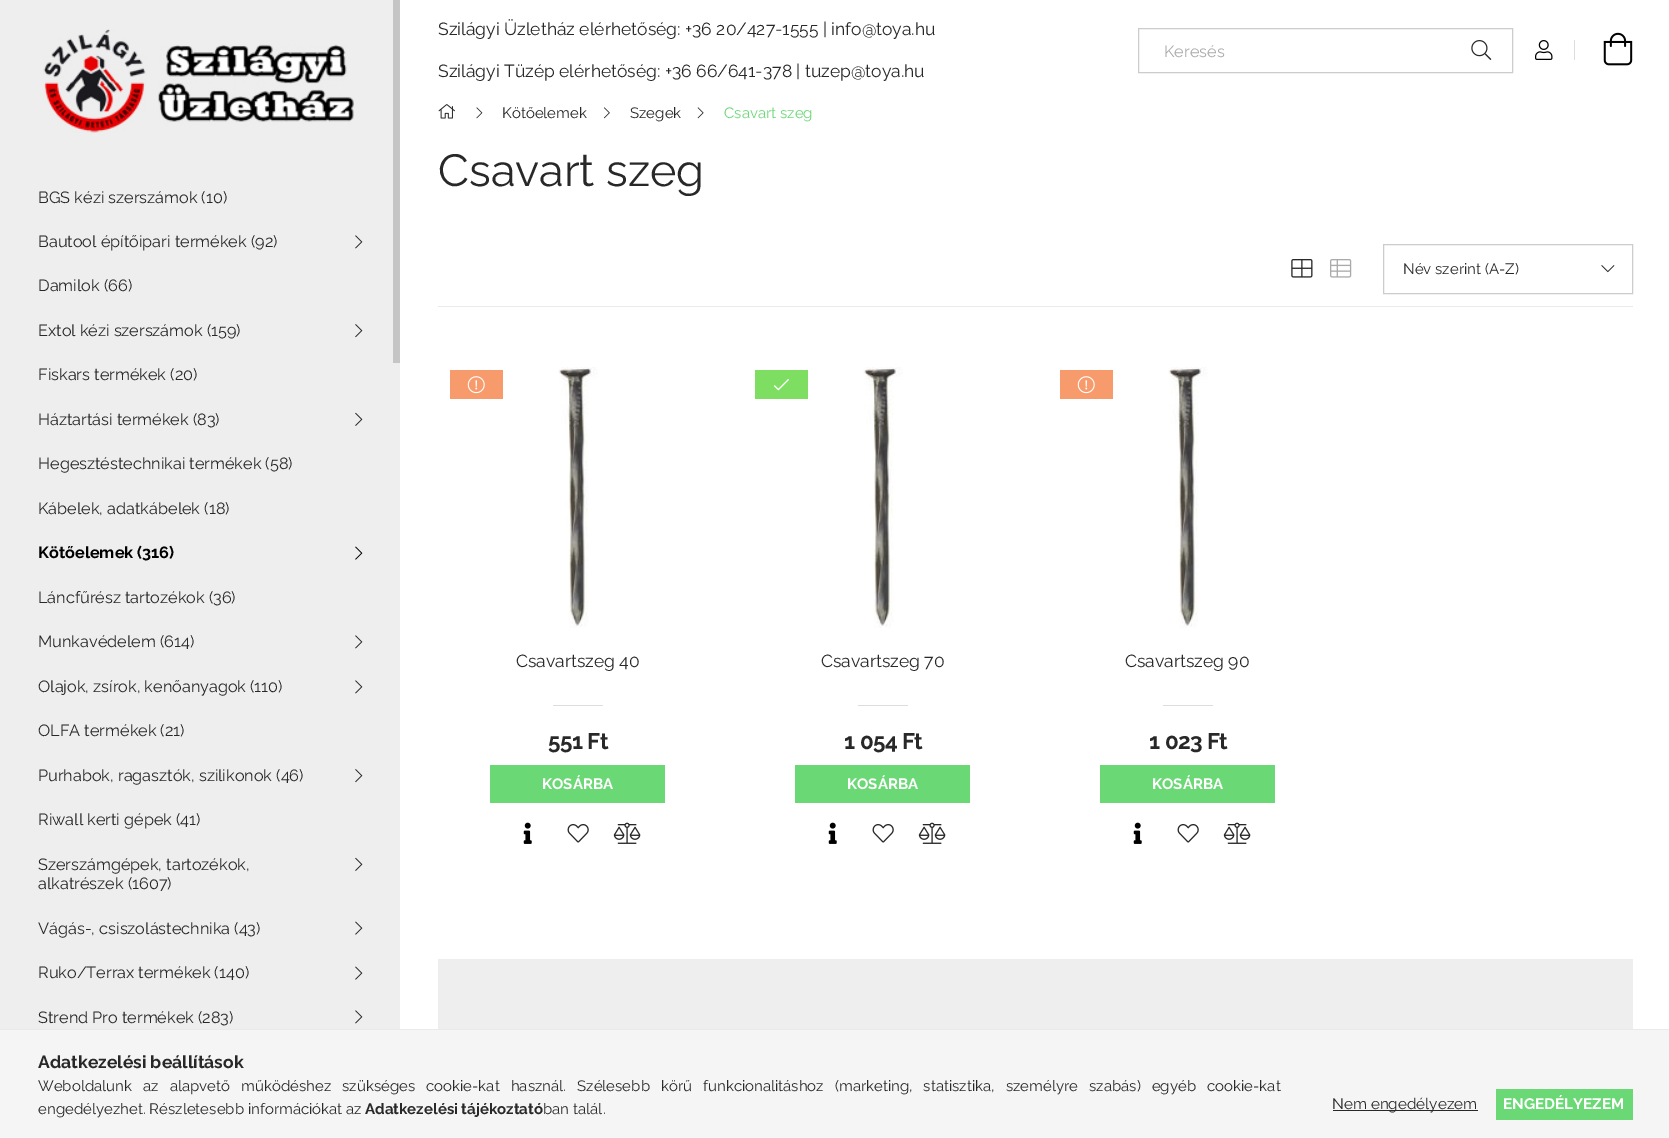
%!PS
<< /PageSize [1669 1138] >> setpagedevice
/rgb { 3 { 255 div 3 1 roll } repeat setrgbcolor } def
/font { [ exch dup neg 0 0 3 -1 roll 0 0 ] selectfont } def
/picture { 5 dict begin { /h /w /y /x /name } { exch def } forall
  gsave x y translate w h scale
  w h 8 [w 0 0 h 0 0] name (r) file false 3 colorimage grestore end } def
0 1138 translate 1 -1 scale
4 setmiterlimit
255 255 255 rgb
0 0 1669 1138 rectfill
238 238 238 rgb
0 0 400 1029 rectfill
(img/1.rgb) 43 29 311 104 picture
(img/2.rgb) 355 235 8 14 picture
(img/3.rgb) 355 324 8 14 picture
(img/4.rgb) 355 412 8 14 picture
(img/5.rgb) 355 546 8 14 picture
(img/2.rgb) 355 635 8 14 picture
(img/2.rgb) 355 680 8 14 picture
(img/3.rgb) 355 769 8 14 picture
(img/4.rgb) 355 857 8 14 picture
(img/6.rgb) 355 921 8 14 picture
(img/6.rgb) 355 966 8 14 picture
(img/2.rgb) 355 1010 8 14 picture
197 197 197 rgb
393 0 7 363 rectfill
204 204 204 rgb
1138.5 28.5 374 44 rectstroke
(img/7.rgb) 1471 40 21 20 picture
(img/8.rgb) 1535 40 18 20 picture
221 221 221 rgb
1574 40 1 20 rectfill
(img/9.rgb) 1603 32 30 34 picture
(img/10.rgb) 438 104 17 15 picture
(img/11.rgb) 476 107 7 12 picture
(img/12.rgb) 603 107 7 12 picture
(img/13.rgb) 697 107 7 12 picture
234 234 234 rgb
438 306 1195 1 rectfill
(img/14.rgb) 1291 259 22 19 picture
(img/15.rgb) 1330 259 22 19 picture
204 204 204 rgb
1383.5 244.5 249 49 rectstroke
(img/16.rgb) 1601 265 14 8 picture
247 155 109 rgb
450 370 53 29 rectfill
(img/17.rgb) 467 376 18 18 picture
(img/18.rgb) 558 367 40 261 picture
221 221 221 rgb
553 705 50 1 rectfill
107 216 118 rgb
490 765 175 38 rectfill
(img/19.rgb) 523 822 9 22 picture
(img/20.rgb) 567 824 22 19 picture
(img/21.rgb) 613 822 28 22 picture
125 222 98 rgb
755 370 53 29 rectfill
(img/22.rgb) 773 379 16 12 picture
(img/18.rgb) 863 367 40 261 picture
221 221 221 rgb
858 705 50 1 rectfill
107 216 118 rgb
795 765 175 38 rectfill
(img/19.rgb) 828 822 9 22 picture
(img/20.rgb) 872 824 22 19 picture
(img/21.rgb) 918 822 28 22 picture
247 155 109 rgb
1060 370 53 29 rectfill
(img/17.rgb) 1077 376 18 18 picture
(img/18.rgb) 1168 367 40 261 picture
221 221 221 rgb
1163 705 50 1 rectfill
107 216 118 rgb
1100 765 175 38 rectfill
(img/19.rgb) 1133 822 9 22 picture
(img/20.rgb) 1177 824 22 19 picture
(img/21.rgb) 1223 822 28 22 picture
[
  [438 959 1195 70 238 238 238]
  [0 1030 1669 108 245 245 245]
  [0 1029 1669 1 234 234 234]
  [1333 1110 145 1 40 40 40]
  [1496 1089 137 31 107 216 118]
] { aload pop rgb rectfill } forall
/Raleway-Regular 16.25 font
40 40 40 rgb
[
  [(BGS kézi szerszámok \(10\)) 38 203]
  [(Bautool építőipari termékek \(92\)) 38 247]
  [(Damilok \(66\)) 38 291]
  [(Extol kézi szerszámok \(159\)) 38 336]
  [(Fiskars termékek \(20\)) 38 380]
  [(Háztartási termékek \(83\)) 38 425]
  [(Hegesztéstechnikai termékek \(58\)) 38 469]
  [(Kábelek, adatkábelek \(18\)) 38 514]
] { aload pop moveto show } forall
/Raleway-Bold 16.25 font
0 0 0 rgb
38 558 moveto (Kötőelemek \(316\)) show
/Raleway-Regular 16.25 font
40 40 40 rgb
[
  [(Láncfűrész tartozékok \(36\)) 38 603]
  [(Munkavédelem \(614\)) 38 647]
  [(Olajok, zsírok, kenőanyagok \(110\)) 38 692]
  [(OLFA termékek \(21\)) 38 736]
  [(Purhabok, ragasztók, szilikonok \(46\)) 38 781]
  [(Riwall kerti gépek \(41\)) 38 825]
  [(Szerszámgépek, tartozékok,) 38 870]
  [(alkatrészek \(1607\)) 38 889]
  [(Vágás-, csiszolástechnika \(43\)) 38 934]
  [(Ruko/Terrax termékek \(140\)) 38 978]
  [(Strend Pro termékek \(283\)) 38 1023]
] { aload pop moveto show } forall
/Raleway-Regular 17.5 font
438 35 moveto (Szilágyi Üzletház elérhetőség: +36 20/427-1555 | info@toya.hu) show
438 77 moveto (Szilágyi Tüzép elérhetőség: +36 66/641-378 | tuzep@toya.hu) show
/Raleway-Regular 16.25 font
170 170 170 rgb
1164 57 moveto (Keresés) show
/Raleway-Regular 15 font
40 40 40 rgb
502 118 moveto (Kötőelemek) show
630 118 moveto (Szegek) show
107 216 118 rgb
724 118 moveto (Csavart szeg) show
/Raleway-Regular 45 font
40 40 40 rgb
438 186 moveto (Csavart szeg) show
/Raleway-Regular 15 font
1403 274 moveto (Név szerint \(A-Z\)) show
/Raleway-Regular 17.5 font
516 667 moveto (Csavartszeg 40) show
/Raleway-Bold 22.5 font
548 749 moveto -0.5 0 (551 Ft) ashow
/Raleway-Bold 15 font
255 255 255 rgb
542 789 moveto (KOSÁRBA) show
/Raleway-Regular 17.5 font
40 40 40 rgb
821 667 moveto (Csavartszeg 70) show
/Raleway-Bold 22.5 font
844 749 moveto -0.5 0 (1 054 Ft) ashow
/Raleway-Bold 15 font
255 255 255 rgb
847 789 moveto (KOSÁRBA) show
/Raleway-Regular 17.5 font
40 40 40 rgb
1125 667 moveto (Csavartszeg 90) show
/Raleway-Bold 22.5 font
1149 749 moveto -0.5 0 (1 023 Ft) ashow
/Raleway-Bold 15 font
255 255 255 rgb
1152 789 moveto (KOSÁRBA) show
/Raleway-Bold 17.5 font
40 40 40 rgb
38 1068 moveto (Adatkezelési beállítások) show
/Raleway-Regular 15 font
38 1091 moveto 7.25 0 32 (Weboldalunk az alapvető működéshez szükséges cookie-kat használ. Szélesebb körű funkcionalitáshoz \(marketing, statisztika, személyre szabás\) egyéb cookie-kat) widthshow
38 1114 moveto (engedélyezhet. Részletesebb információkat az) show
/Raleway-Bold 15 font
365 1114 moveto (Adatkezelési tájékoztató) show
/Raleway-Regular 15 font
543 1114 moveto (ban talál.) show
/Raleway-Regular 15.25 font
1332 1109 moveto (Nem engedélyezem) show
/Raleway-Bold 15.25 font
255 255 255 rgb
1503 1109 moveto (ENGEDÉLYEZEM) show
showpage
